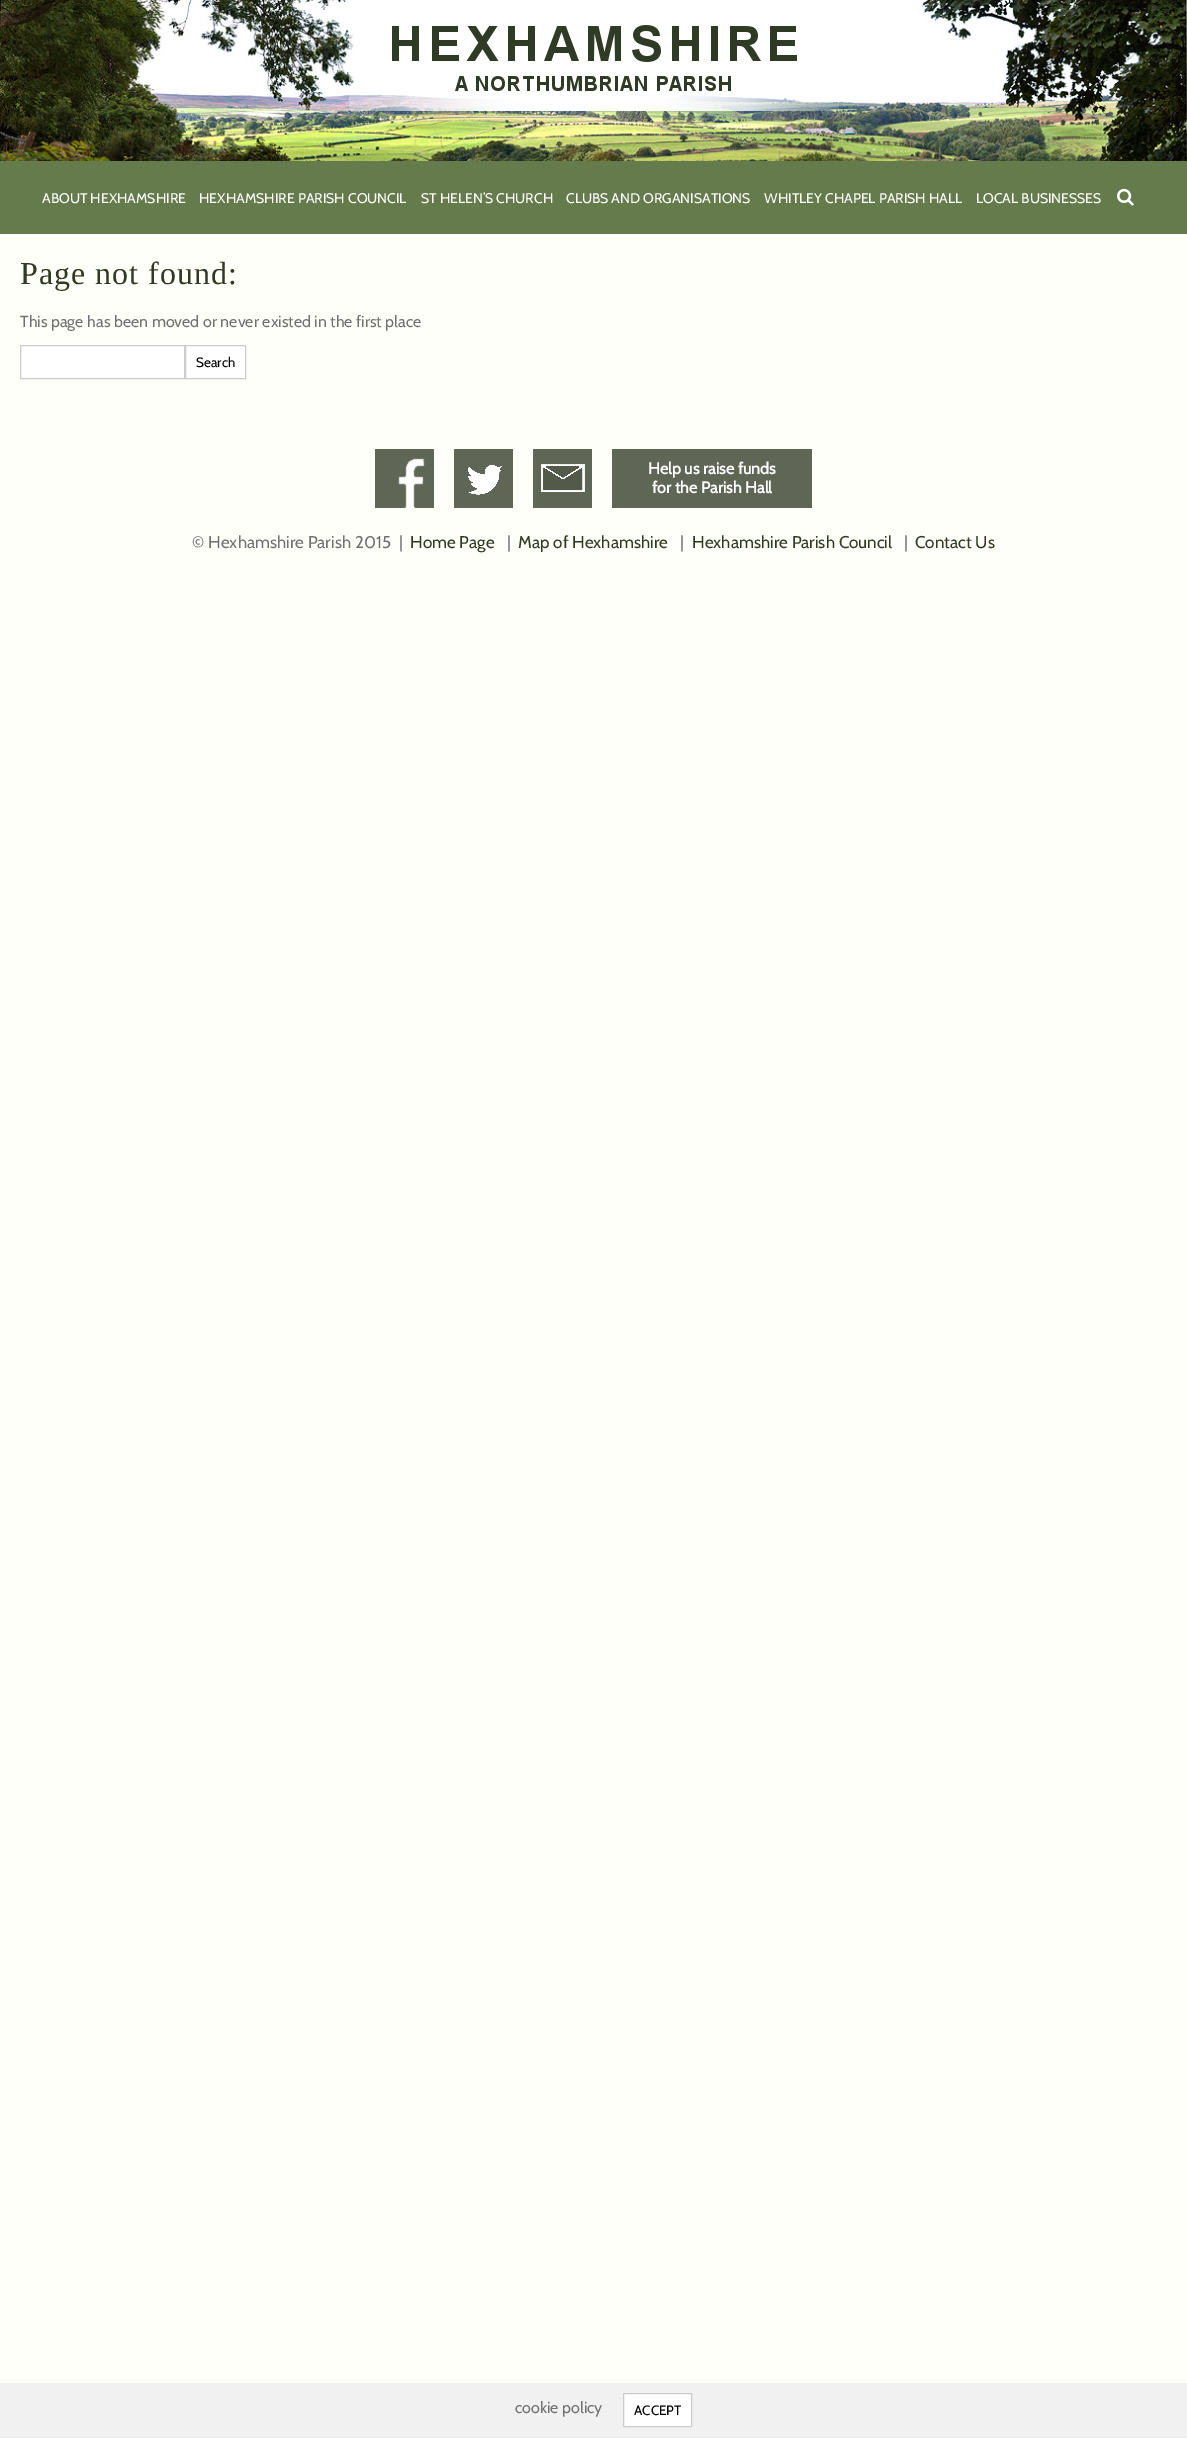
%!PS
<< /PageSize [1187 2438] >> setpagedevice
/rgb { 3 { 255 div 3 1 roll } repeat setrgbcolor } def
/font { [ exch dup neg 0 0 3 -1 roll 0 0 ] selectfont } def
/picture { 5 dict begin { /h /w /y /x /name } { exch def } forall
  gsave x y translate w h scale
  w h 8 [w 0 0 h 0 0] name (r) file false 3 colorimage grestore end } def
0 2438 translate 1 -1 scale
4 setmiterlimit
255 255 249 rgb
0 0 1187 2438 rectfill
(img/1.rgb) 0 0 1187 161 picture
(img/2.rgb) 349 25 490 86 picture
101 123 76 rgb
0 161 1187 73 rectfill
(img/3.rgb) 1117 188 17 18 picture
255 255 255 rgb
20.5 345.5 moveto 184.5 345.5 lineto 184.5 378.5 lineto 20.5 378.5 lineto closepath gsave fill grestore
204 204 204 rgb
stroke
255 255 255 rgb
185.5 345.5 moveto 245.5 345.5 lineto 245.5 378.5 lineto 185.5 378.5 lineto closepath gsave fill grestore
204 204 204 rgb
stroke
(img/4.rgb) 375 449 59 59 picture
(img/5.rgb) 454 449 59 59 picture
(img/6.rgb) 533 449 59 59 picture
[
  [612 449 200 59 95 102 86]
  [0 2383 1187 54 241 241 241]
  [0 2437 1187 1 232 232 232]
] { aload pop rgb rectfill } forall
255 255 255 rgb
623.5 2393.5 moveto 691.5 2393.5 lineto 691.5 2426.5 lineto 623.5 2426.5 lineto closepath gsave fill grestore
204 204 204 rgb
stroke
/Cabin-Regular 14 font
255 255 255 rgb
[
  [(ABOUT HEXHAMSHIRE) 42 203]
  [(HEXHAMSHIRE PARISH COUNCIL) 199 203]
  [(ST HELEN’S CHURCH) 421 203]
  [(CLUBS AND ORGANISATIONS) 566 203]
  [(WHITLEY CHAPEL PARISH HALL) 764 203]
  [(LOCAL BUSINESSES) 976 203]
] { aload pop moveto show } forall
/LiberationSerif-Regular 32 font
48 57 36 rgb
20 284 moveto 1 0 (Page not found:) ashow
/Cabin-Regular 16 font
112 113 115 rgb
20 327 moveto (This page has been moved or never existed in the first place) show
/Cabin-Regular 13.5 font
0 0 0 rgb
196 367 moveto (Search) show
/Cabin-Bold 16 font
255 255 255 rgb
648 474 moveto (Help us raise funds) show
652 493 moveto (for the Parish Hall) show
/Cabin-Regular 17 font
112 113 115 rgb
192 548 moveto (© Hexhamshire Parish 2015) show
399 548 moveto (|) show
48 57 36 rgb
410 548 moveto (Home Page) show
112 113 115 rgb
507 548 moveto (|) show
48 57 36 rgb
518 548 moveto (Map of Hexhamshire) show
112 113 115 rgb
680 548 moveto (|) show
48 57 36 rgb
692 548 moveto (Hexhamshire Parish Council) show
112 113 115 rgb
904 548 moveto (|) show
48 57 36 rgb
915 548 moveto (Contact Us) show
/Cabin-Regular 16 font
112 113 115 rgb
515 2413 moveto (cookie policy) show
/Cabin-Regular 13.5 font
0 0 0 rgb
634 2415 moveto (ACCEPT) show
showpage
